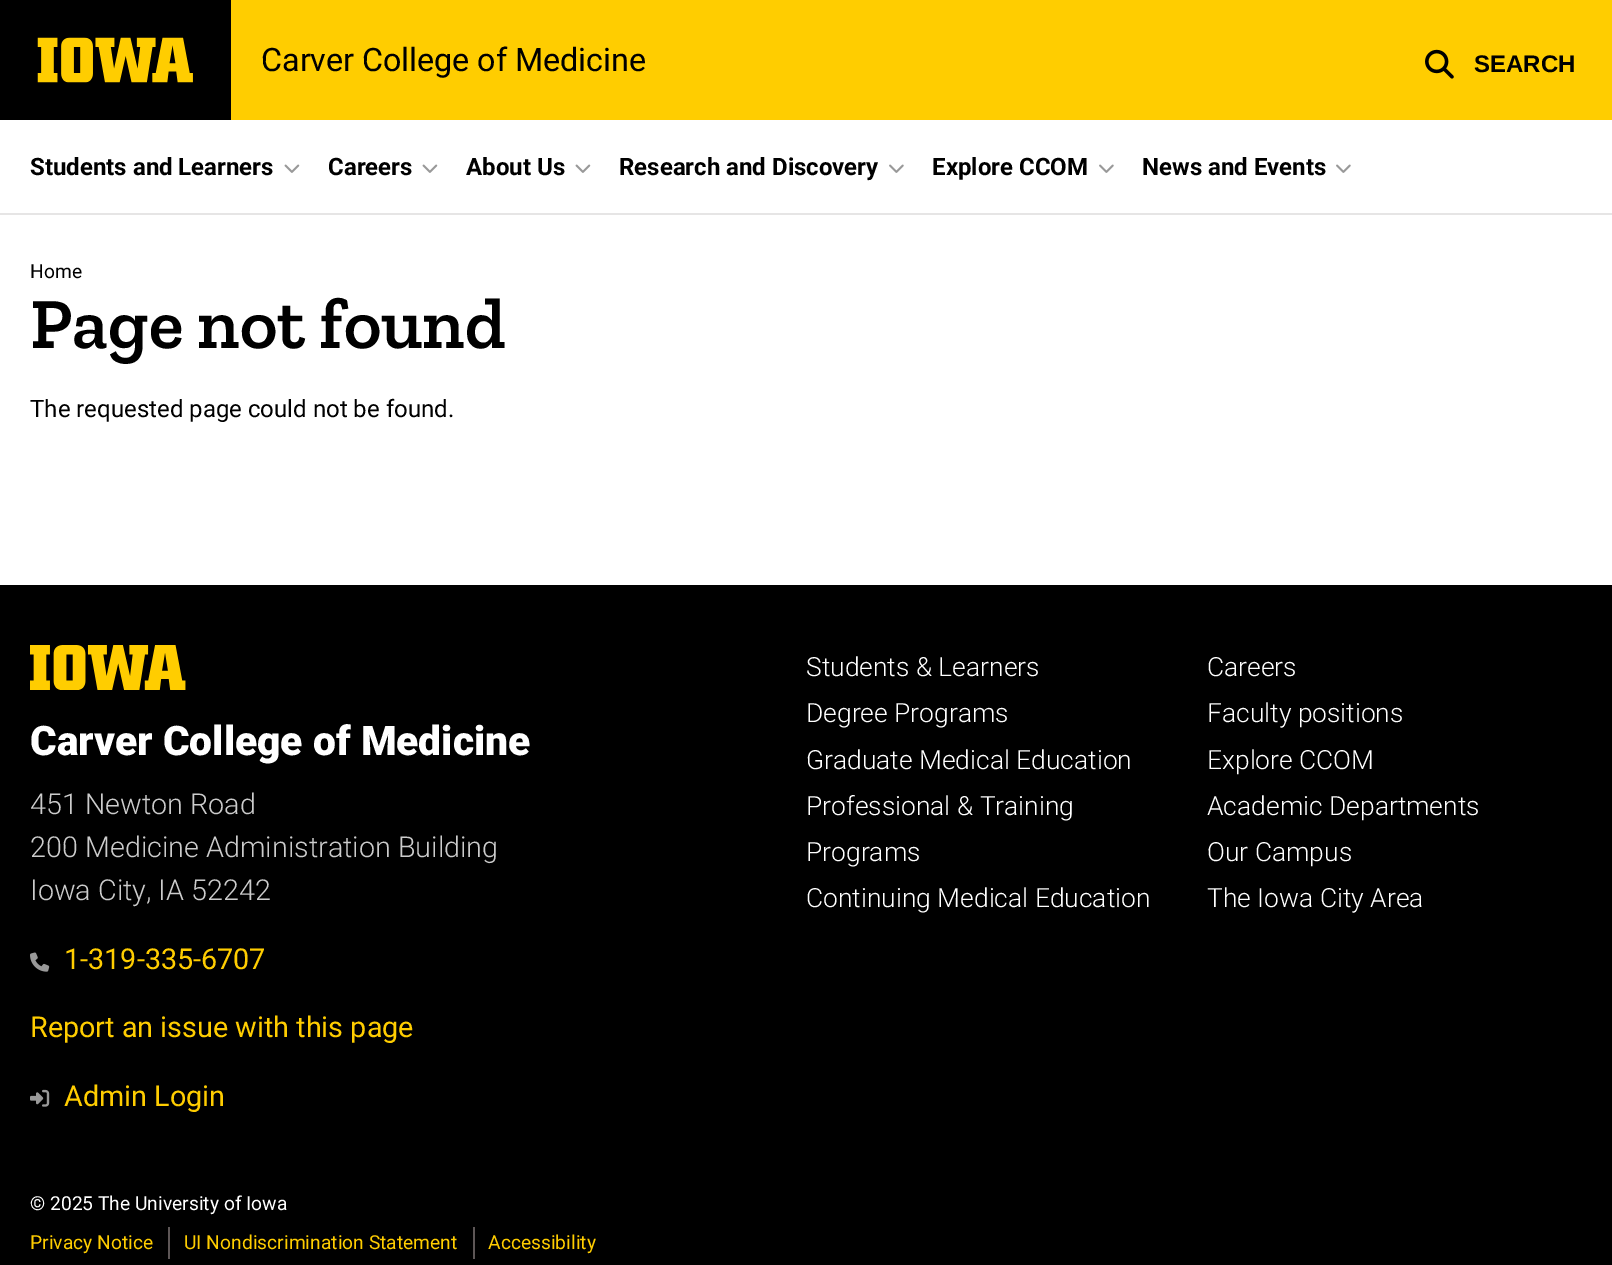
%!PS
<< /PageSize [1612 1265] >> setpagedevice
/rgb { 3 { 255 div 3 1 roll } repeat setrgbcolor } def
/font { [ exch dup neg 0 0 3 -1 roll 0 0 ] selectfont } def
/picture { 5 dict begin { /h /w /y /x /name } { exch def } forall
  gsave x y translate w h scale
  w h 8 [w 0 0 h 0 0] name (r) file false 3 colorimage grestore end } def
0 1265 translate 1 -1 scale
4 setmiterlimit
255 255 255 rgb
0 0 1612 1265 rectfill
255 205 0 rgb
231 0 1381 120 rectfill
0 0 0 rgb
0 0 231 120 rectfill
(img/1.rgb) 37 37 156 46 picture
(img/2.rgb) 1425 49 29 30 picture
230 229 229 rgb
0 213 1612 2 rectfill
(img/3.rgb) 284 164 16 9 picture
(img/3.rgb) 422 164 16 9 picture
(img/3.rgb) 575 164 16 9 picture
(img/4.rgb) 889 164 15 9 picture
(img/4.rgb) 1099 164 15 9 picture
(img/4.rgb) 1336 164 15 9 picture
0 0 0 rgb
0 585 1612 680 rectfill
(img/5.rgb) 30 645 156 45 picture
(img/6.rgb) 30 952 20 20 picture
(img/7.rgb) 30 1089 20 18 picture
93 86 86 rgb
168 1227 2 32 rectfill
473 1227 2 32 rectfill
/Roboto-Regular 32.25 font
0 0 0 rgb
261 71 moveto (Carver College of Medicine) show
/LiberationSans-Bold 24 font
1474 72 moveto (SEARCH) show
/Roboto-Bold 24 font
[
  [(Students and Learners) 30 175]
  [(Careers) 328 175]
  [(About Us) 466 175]
  [(Research and Discovery) 619 175]
  [(Explore CCOM) 932 175]
  [(News and Events) 1142 175]
] { aload pop moveto show } forall
/Roboto-Regular 19.25 font
30 278 moveto (Home) show
/ZillaSlab-SemiBold 72 font
30 348 moveto (Page not found) show
/Roboto-Regular 24 font
30 417 moveto (The requested page could not be found.) show
/Roboto-Black 40.75 font
255 255 255 rgb
30 755 moveto (Carver College of Medicine) show
/Roboto-Light 28.75 font
204 204 204 rgb
[
  [(451 Newton Road) 30 814]
  [(200 Medicine Administration Building) 30 857]
  [(Iowa City, IA 52242) 30 900]
] { aload pop moveto show } forall
/Roboto-Regular 28.75 font
255 205 0 rgb
[
  [(1-319-335-6707) 64 969]
  [(Report an issue with this page) 30 1037]
  [(Admin Login) 64 1106]
] { aload pop moveto show } forall
/Roboto-Light 26.4 font
255 255 255 rgb
[
  [(Students & Learners) 806 676]
  [(Degree Programs) 806 722]
  [(Graduate Medical Education) 806 769]
  [(Professional & Training) 806 815]
  [(Programs) 806 861]
  [(Continuing Medical Education) 806 907]
  [(Careers) 1207 676]
  [(Faculty positions) 1207 722]
  [(Explore CCOM) 1207 769]
  [(Academic Departments) 1207 815]
  [(Our Campus) 1207 861]
  [(The Iowa City Area) 1207 907]
] { aload pop moveto show } forall
/Roboto-Regular 19.25 font
30 1210 moveto (© 2025 The University of Iowa) show
255 205 0 rgb
[
  [(Privacy Notice) 30 1249]
  [(UI Nondiscrimination Statement) 184 1249]
  [(Accessibility) 488 1249]
] { aload pop moveto show } forall
showpage
